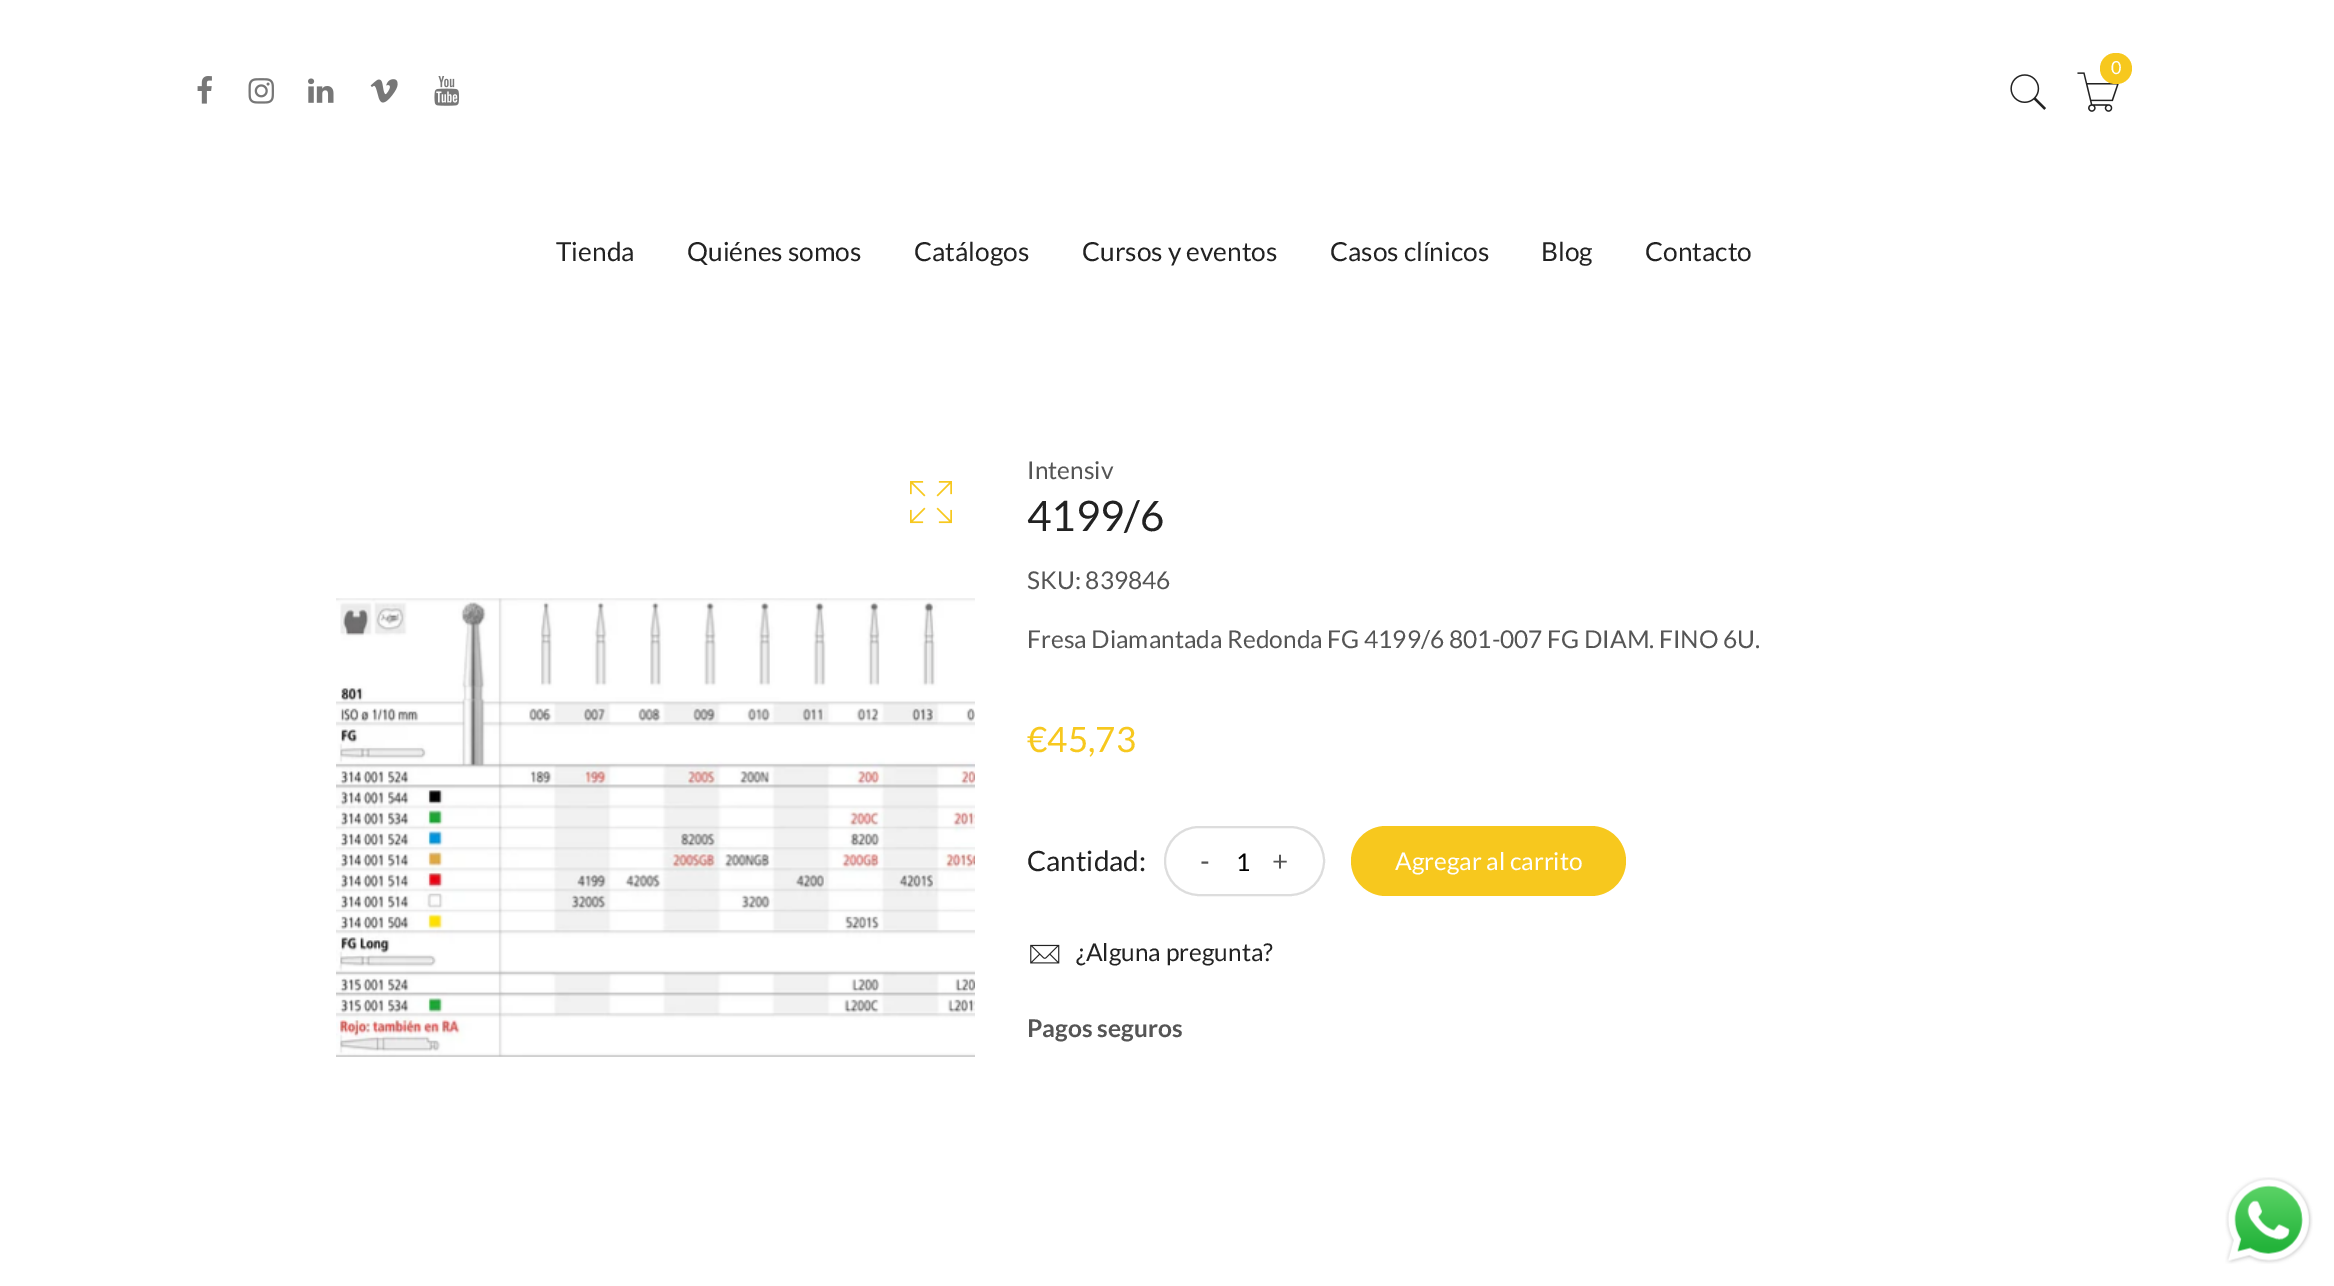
%!PS
<< /PageSize [2334 1286] >> setpagedevice
/rgb { 3 { 255 div 3 1 roll } repeat setrgbcolor } def
/font { [ exch dup neg 0 0 3 -1 roll 0 0 ] selectfont } def
/roundrect { 5 dict begin { /r /h /w /y /x } { exch def } forall
  x r add y moveto x w add y 2 copy h add r arct x w add y h add x 1 index r arct
  x y h add x y r arct x y 2 copy exch w add exch r arct closepath end } def
/picture { 5 dict begin { /h /w /y /x /name } { exch def } forall
  gsave x y translate w h scale
  w h 8 [w 0 0 h 0 0] name (r) file false 3 colorimage grestore end } def
0 1286 translate 1 -1 scale
4 setmiterlimit
255 255 255 rgb
0 0 2334 1286 rectfill
(img/1.rgb) 2077 72 42 40 picture
247 200 30 rgb
2100 53 32 31 15.5 roundrect fill
(img/2.rgb) 2010 74 36 36 picture
(img/3.rgb) 197 76 15 28 picture
(img/4.rgb) 248 78 26 26 picture
(img/5.rgb) 308 78 26 25 picture
(img/6.rgb) 370 79 28 24 picture
(img/7.rgb) 434 76 26 30 picture
(img/8.rgb) 910 481 42 43 picture
(img/9.rgb) 336 598 639 459 picture
221 221 221 rgb
2 setlinewidth
1165 827 159 68 34 roundrect stroke
247 200 30 rgb
1351 826 275 70 35 roundrect fill
(img/10.rgb) 1030 944 30 20 picture
(img/11.rgb) 2225 1177 88 87 picture
/Lato-Regular 18 font
255 255 255 rgb
2111 74 moveto (0) show
/Lato-Regular 26.25 font
34 34 34 rgb
[
  [(Tienda) 556 261]
  [(Quiénes somos) 687 261]
  [(Catálogos) 914 261]
  [(Cursos y eventos) 1082 261]
  [(Casos clínicos) 1330 261]
  [(Blog) 1541 261]
  [(Contacto) 1645 261]
] { aload pop moveto show } forall
/Lato-Regular 24.5 font
85 85 85 rgb
1027 479 moveto (Intensiv) show
/Lato-Regular 42 font
34 34 34 rgb
1027 531 moveto (4199/6) show
/Lato-Regular 24.5 font
85 85 85 rgb
1027 589 moveto (SKU: 839846) show
1027 648 moveto (Fresa Diamantada Redonda FG 4199/6 801-007 FG DIAM. FINO 6U.) show
/Lato-Regular 35 font
247 200 30 rgb
1027 752 moveto (€45,73) show
/Lato-Regular 28 font
34 34 34 rgb
1027 871 moveto (Cantidad:) show
85 85 85 rgb
1200 871 moveto (-) show
/Lato-Regular 24.5 font
0 0 0 rgb
1236 871 moveto (1) show
/Lato-Regular 28 font
85 85 85 rgb
1272 871 moveto (+) show
/Lato-Regular 24.5 font
255 255 255 rgb
1395 870 moveto (Agregar al carrito) show
34 34 34 rgb
1076 961 moveto (¿Alguna pregunta?) show
/Lato-Bold 24.5 font
85 85 85 rgb
1027 1037 moveto (Pagos seguros) show
showpage
